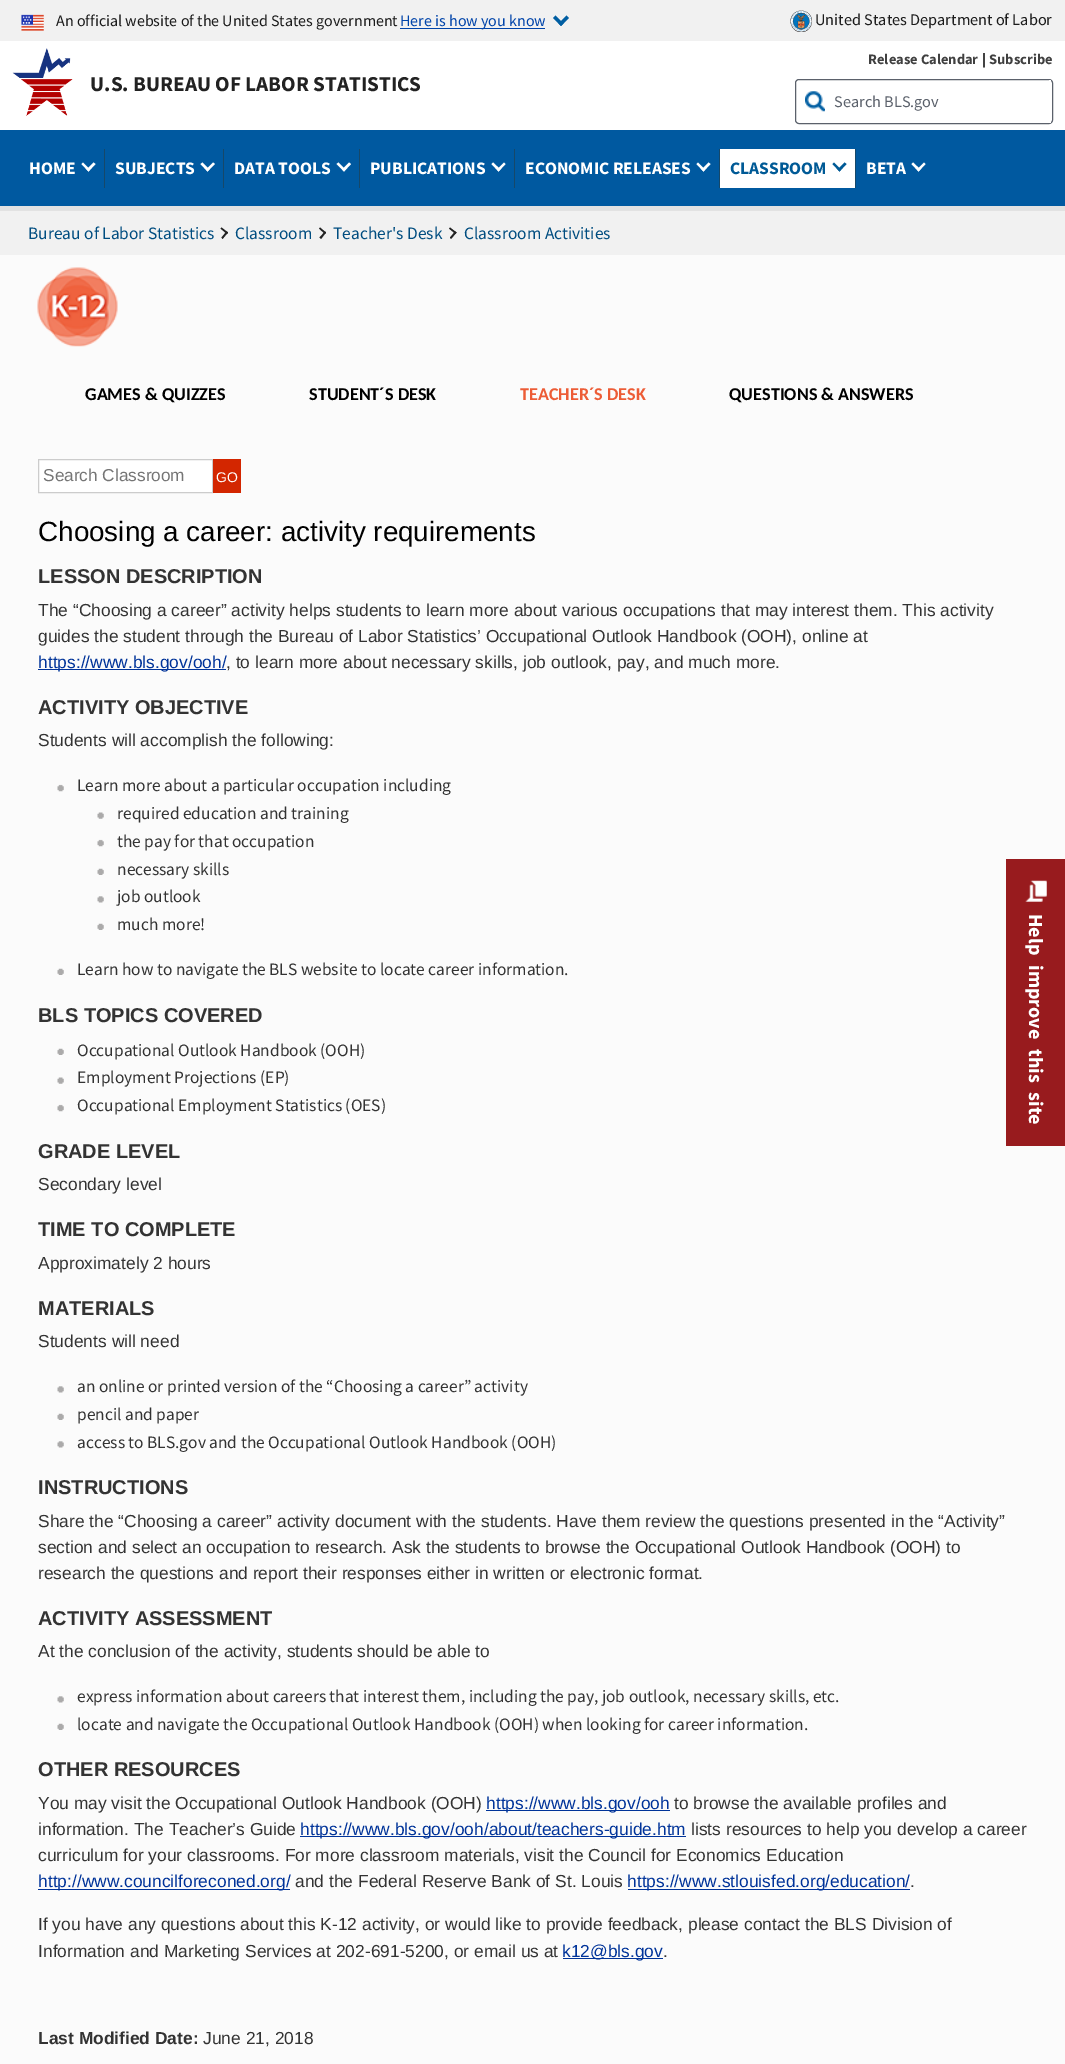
%!PS
<< /PageSize [1065 2064] >> setpagedevice
/rgb { 3 { 255 div 3 1 roll } repeat setrgbcolor } def
/font { [ exch dup neg 0 0 3 -1 roll 0 0 ] selectfont } def
/roundrect { 5 dict begin { /r /h /w /y /x } { exch def } forall
  x r add y moveto x w add y 2 copy h add r arct x w add y h add x 1 index r arct
  x y h add x y r arct x y 2 copy exch w add exch r arct closepath end } def
/picture { 5 dict begin { /h /w /y /x /name } { exch def } forall
  gsave x y translate w h scale
  w h 8 [w 0 0 h 0 0] name (r) file false 3 colorimage grestore end } def
0 2064 translate 1 -1 scale
4 setmiterlimit
255 255 255 rgb
0 0 1065 2064 rectfill
241 241 241 rgb
0 0 1065 41 rectfill
(img/1.rgb) 21 14 23 17 picture
0 68 170 rgb
400 28 145 1 rectfill
0 94 162 rgb
566.5 15.5 moveto 569 18 lineto 561 26 lineto 558.5 23.5 lineto closepath fill
555.5 15.5 moveto 563.5 23.5 lineto 561 26 lineto 553 18 lineto closepath fill
(img/2.rgb) 790 10 23 22 picture
(img/3.rgb) 12 48 61 68 picture
91 97 107 rgb
795.5 79.5 257 44 3.5 roundrect stroke
(img/4.rgb) 805 91 20 21 picture
[
  [1049 80 2 43 255 255 255]
  [0 130 1065 76 0 89 160]
  [0 206 1065 5 226 226 226]
  [104 149 1 39 22 72 105]
] { aload pop rgb rectfill } forall
255 255 255 rgb
93.5 162.5 moveto 95.5 164 lineto 88.5 171.5 lineto 86.5 169.5 lineto closepath fill
83 162.5 moveto 90 169.5 lineto 88.5 171.5 lineto 81.5 164 lineto closepath fill
22 72 105 rgb
223 149 1 39 rectfill
255 255 255 rgb
213 162.5 moveto 215 164 lineto 207.5 171.5 lineto 206 169.5 lineto closepath fill
202.5 162.5 moveto 209.5 169.5 lineto 207.5 171.5 lineto 200.5 164 lineto closepath fill
22 72 105 rgb
359 149 1 39 rectfill
255 255 255 rgb
349 162.5 moveto 351 164 lineto 344 171.5 lineto 342 169.5 lineto closepath fill
338.5 162.5 moveto 345.5 169.5 lineto 344 171.5 lineto 336.5 164 lineto closepath fill
22 72 105 rgb
514 149 1 39 rectfill
255 255 255 rgb
504 162.5 moveto 505.5 164 lineto 498.5 171.5 lineto 497 169.5 lineto closepath fill
493 162.5 moveto 500.5 169.5 lineto 498.5 171.5 lineto 491.5 164 lineto closepath fill
22 72 105 rgb
719 149 1 39 rectfill
255 255 255 rgb
708.5 162.5 moveto 710.5 164 lineto 703.5 171.5 lineto 701.5 169.5 lineto closepath fill
698 162.5 moveto 705 169.5 lineto 703.5 171.5 lineto 696.5 164 lineto closepath fill
720 149 135 39 rectfill
22 72 105 rgb
855 149 1 39 rectfill
0 90 150 rgb
844.5 162.5 moveto 846.5 164 lineto 839.5 171.5 lineto 837.5 169.5 lineto closepath fill
834 162.5 moveto 841 169.5 lineto 839.5 171.5 lineto 832.5 164 lineto closepath fill
255 255 255 rgb
924 162.5 moveto 925.5 164 lineto 918.5 171.5 lineto 917 169.5 lineto closepath fill
913 162.5 moveto 920.5 169.5 lineto 918.5 171.5 lineto 911.5 164 lineto closepath fill
241 241 241 rgb
0 211 1065 44 rectfill
34 34 34 rgb
220.5 228.5 moveto 221.5 227.5 lineto 228 232.5 lineto 227 234 lineto closepath fill
221.5 237.5 moveto 226.5 231.5 lineto 228 232.5 lineto 222.5 239 lineto closepath fill
319 228.5 moveto 320 227.5 lineto 326 232.5 lineto 325 234 lineto closepath fill
319.5 237.5 moveto 325 231.5 lineto 326 232.5 lineto 321 239 lineto closepath fill
449 228.5 moveto 450 227.5 lineto 456.5 232.5 lineto 455.5 234 lineto closepath fill
450 237.5 moveto 455 231.5 lineto 456.5 232.5 lineto 451 239 lineto closepath fill
251 251 251 rgb
0 255 1065 1809 rectfill
(img/5.rgb) 37 267 81 80 picture
255 255 255 rgb
38.5 459.5 moveto 212.5 459.5 lineto 212.5 492.5 lineto 38.5 492.5 lineto closepath gsave fill grestore
204 204 204 rgb
stroke
211 38 0 rgb
213 459 28 34 rectfill
0 51 153 rgb
38 669 188 1 rectfill
(img/6.rgb) 57 784 7 8 picture
(img/7.rgb) 97 812 7 7 picture
(img/6.rgb) 97 839 7 8 picture
(img/8.rgb) 97 868 7 7 picture
(img/9.rgb) 97 896 7 7 picture
(img/8.rgb) 97 923 7 7 picture
(img/8.rgb) 57 968 7 7 picture
(img/8.rgb) 57 1048 7 7 picture
(img/7.rgb) 57 1077 7 7 picture
(img/6.rgb) 57 1104 7 8 picture
(img/9.rgb) 57 1386 7 7 picture
(img/8.rgb) 57 1413 7 7 picture
(img/9.rgb) 57 1441 7 7 picture
(img/9.rgb) 57 1696 7 7 picture
(img/8.rgb) 57 1723 7 7 picture
[
  [486 1810 184 1 0 51 153]
  [300 1836 386 1 0 51 153]
  [38 1889 252 1 0 51 153]
  [628 1889 282 1 0 51 153]
  [563 1958 100 1 0 51 153]
  [1006 859 59 287 152 27 30]
] { aload pop rgb rectfill } forall
(img/10.rgb) 1025 880 22 22 picture
/SourceSansPro-Regular 16 font
27 27 27 rgb
56 26 moveto (An official website of the United States government) show
0 68 170 rgb
400 26 moveto (Here is how you know) show
/SourceSansPro-Regular 16.25 font
27 27 27 rgb
815 25 moveto (United States Department of Labor) show
/SourceSansPro-Bold 21.25 font
34 34 34 rgb
90 91 moveto (U.S. BUREAU OF LABOR STATISTICS) show
/SourceSansPro-Bold 14.5 font
64 64 64 rgb
868 64 moveto (Release Calendar) show
0 0 0 rgb
982 64 moveto (|) show
64 64 64 rgb
989 64 moveto (Subscribe) show
/SourceSansPro-Regular 16.25 font
91 97 107 rgb
834 107 moveto (Search BLS.gov) show
/SourceSansPro-Bold 17.5 font
255 255 255 rgb
[
  [(HOME) 29 174]
  [(SUBJECTS) 115 174]
  [(DATA TOOLS) 234 174]
  [(PUBLICATIONS) 370 174]
  [(ECONOMIC RELEASES) 525 174]
] { aload pop moveto show } forall
0 90 150 rgb
730 174 moveto (CLASSROOM) show
255 255 255 rgb
866 174 moveto (BETA) show
/SourceSansPro-Regular 17.4 font
0 77 128 rgb
[
  [(Bureau of Labor Statistics) 28 239]
  [(Classroom) 235 239]
  [(Teacher's Desk) 333 239]
  [(Classroom Activities) 464 239]
] { aload pop moveto show } forall
/Carlito-Bold 18.1 font
0 0 0 rgb
85 400 moveto (GAMES & QUIZZES) show
309 400 moveto (STUDENT´S DESK) show
237 92 54 rgb
520 400 moveto (TEACHER´S DESK) show
0 0 0 rgb
729 400 moveto (QUESTIONS & ANSWERS) show
/LiberationSans-Regular 17.25 font
117 117 117 rgb
43 481 moveto (Search Classroom) show
/LiberationSans-Regular 14 font
255 255 255 rgb
216 482 moveto (GO) show
/LiberationSans-Regular 27.8 font
0 0 0 rgb
38 541 moveto (Choosing a career: activity requirements) show
/LiberationSans-Bold 20 font
51 51 51 rgb
38 583 moveto (LESSON DESCRIPTION) show
/LiberationSans-Regular 17.4 font
38 616 moveto (The “Choosing a career” activity helps students to learn more about various occupations that may interest them. This activity) show
38 642 moveto (guides the student through the Bureau of Labor Statistics’ Occupational Outlook Handbook \(OOH\), online at) show
0 51 153 rgb
38 668 moveto (https://www.bls.gov/ooh/) show
51 51 51 rgb
226 668 moveto (, to learn more about necessary skills, job outlook, pay, and much more.) show
/LiberationSans-Bold 20 font
38 714 moveto (ACTIVITY OBJECTIVE) show
/LiberationSans-Regular 17.4 font
38 746 moveto (Students will accomplish the following:) show
/SourceSansPro-Regular 17.4 font
[
  [(Learn more about a particular occupation including) 77 791]
  [(required education and training) 117 819]
  [(the pay for that occupation) 117 847]
  [(necessary skills) 117 875]
  [(job outlook) 117 902]
  [(much more!) 117 930]
  [(Learn how to navigate the BLS website to locate career information.) 77 975]
] { aload pop moveto show } forall
/LiberationSans-Bold 20 font
38 1022 moveto (BLS TOPICS COVERED) show
/SourceSansPro-Regular 17.4 font
[
  [(Occupational Outlook Handbook \(OOH\)) 77 1056]
  [(Employment Projections \(EP\)) 77 1083]
  [(Occupational Employment Statistics \(OES\)) 77 1111]
] { aload pop moveto show } forall
/LiberationSans-Bold 20 font
38 1158 moveto (GRADE LEVEL) show
/LiberationSans-Regular 17.4 font
38 1190 moveto (Secondary level) show
/LiberationSans-Bold 20 font
38 1236 moveto (TIME TO COMPLETE) show
/LiberationSans-Regular 17.4 font
38 1269 moveto (Approximately 2 hours) show
/LiberationSans-Bold 20 font
38 1315 moveto (MATERIALS) show
/LiberationSans-Regular 17.4 font
38 1347 moveto (Students will need) show
/SourceSansPro-Regular 17.4 font
[
  [(an online or printed version of the “Choosing a career” activity) 77 1392]
  [(pencil and paper) 77 1420]
  [(access to BLS.gov and the Occupational Outlook Handbook \(OOH\)) 77 1448]
] { aload pop moveto show } forall
/LiberationSans-Bold 20 font
38 1494 moveto (INSTRUCTIONS) show
/LiberationSans-Regular 17.4 font
[
  [(Share the “Choosing a career” activity document with the students. Have them review the questions presented in the “Activity”) 38 1527]
  [(section and select an occupation to research. Ask the students to browse the Occupational Outlook Handbook \(OOH\) to) 38 1553]
  [(research the questions and report their responses either in written or electronic format.) 38 1579]
] { aload pop moveto show } forall
/LiberationSans-Bold 20 font
38 1625 moveto (ACTIVITY ASSESSMENT) show
/LiberationSans-Regular 17.4 font
38 1657 moveto (At the conclusion of the activity, students should be able to) show
/SourceSansPro-Regular 17.4 font
77 1702 moveto (express information about careers that interest them, including the pay, job outlook, necessary skills, etc.) show
77 1730 moveto (locate and navigate the Occupational Outlook Handbook \(OOH\) when looking for career information.) show
/LiberationSans-Bold 20 font
38 1776 moveto (OTHER RESOURCES) show
/LiberationSans-Regular 17.4 font
38 1809 moveto (You may visit the Occupational Outlook Handbook \(OOH\)) show
0 51 153 rgb
486 1809 moveto (https://www.bls.gov/ooh) show
51 51 51 rgb
674 1809 moveto (to browse the available profiles and) show
38 1835 moveto (information. The Teacher’s Guide) show
0 51 153 rgb
300 1835 moveto (https://www.bls.gov/ooh/about/teachers-guide.htm) show
51 51 51 rgb
691 1835 moveto (lists resources to help you develop a career) show
38 1861 moveto (curriculum for your classrooms. For more classroom materials, visit the Council for Economics Education) show
0 51 153 rgb
38 1887 moveto (http://www.councilforeconed.org/) show
51 51 51 rgb
295 1887 moveto (and the Federal Reserve Bank of St. Louis) show
0 51 153 rgb
627 1887 moveto (https://www.stlouisfed.org/education/) show
51 51 51 rgb
[
  [(.) 910 1887]
  [(If you have any questions about this K-12 activity, or would like to provide feedback, please contact the BLS Division of) 38 1930]
  [(Information and Marketing Services at 202-691-5200, or email us at) 38 1957]
] { aload pop moveto show } forall
0 51 153 rgb
562 1957 moveto (k12@bls.gov) show
51 51 51 rgb
663 1957 moveto (.) show
/LiberationSans-Bold 17.4 font
38 2044 moveto (Last Modified Date:) show
/LiberationSans-Regular 17.4 font
203 2044 moveto (June 21, 2018) show
/SourceSansPro-Bold 20 font
255 255 255 rgb
gsave 1029 914 translate 90 rotate 0 0 moveto 6 0 32 (Help improve this site) widthshow grestore
showpage
